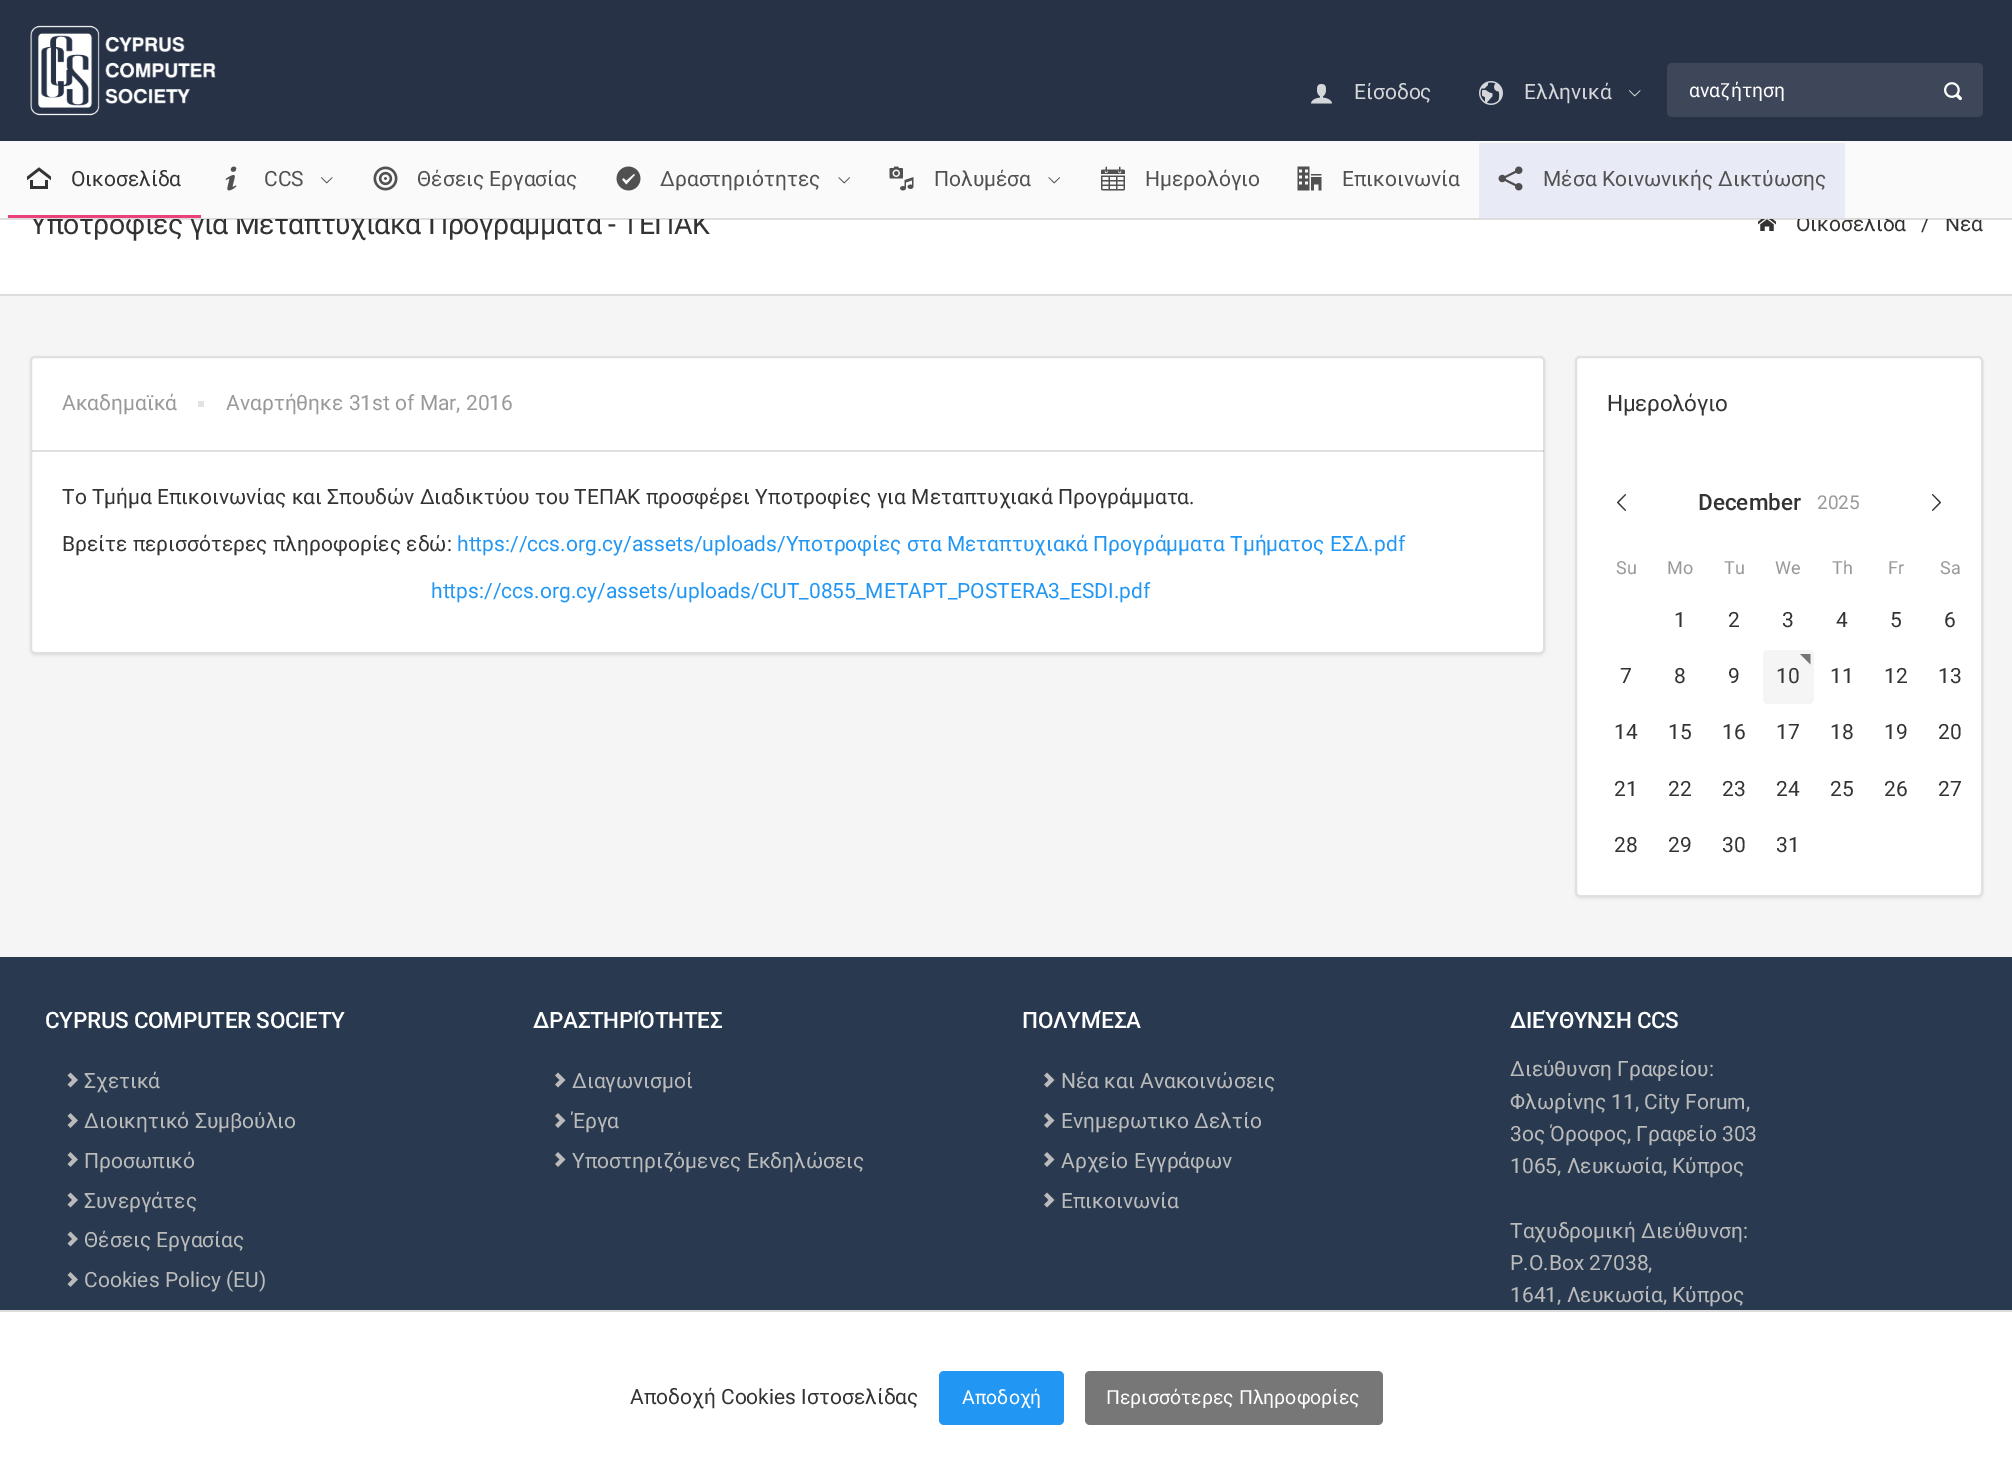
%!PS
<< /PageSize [2012 1484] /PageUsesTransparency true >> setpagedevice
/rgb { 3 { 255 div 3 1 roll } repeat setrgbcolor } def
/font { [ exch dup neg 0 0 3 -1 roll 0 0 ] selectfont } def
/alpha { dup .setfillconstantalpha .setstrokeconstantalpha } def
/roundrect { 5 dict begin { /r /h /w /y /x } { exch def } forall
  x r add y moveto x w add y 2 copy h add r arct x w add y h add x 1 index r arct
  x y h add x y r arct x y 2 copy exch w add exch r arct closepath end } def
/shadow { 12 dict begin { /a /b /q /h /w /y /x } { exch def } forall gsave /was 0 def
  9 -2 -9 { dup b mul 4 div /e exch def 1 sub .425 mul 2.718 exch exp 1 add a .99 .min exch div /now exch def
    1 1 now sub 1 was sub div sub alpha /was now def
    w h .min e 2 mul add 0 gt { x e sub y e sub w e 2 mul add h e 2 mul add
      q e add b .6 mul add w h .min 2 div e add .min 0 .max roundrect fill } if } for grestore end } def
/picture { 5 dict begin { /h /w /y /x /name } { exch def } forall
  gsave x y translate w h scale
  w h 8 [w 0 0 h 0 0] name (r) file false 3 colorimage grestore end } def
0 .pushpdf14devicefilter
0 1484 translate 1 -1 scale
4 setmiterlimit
245 245 245 rgb
0 0 2012 1484 rectfill
39 50 70 rgb
0 0 2012 141 rectfill
(img/1.rgb) 30 25 186 91 picture
(img/2.rgb) 1311 84 21 20 picture
(img/3.rgb) 1479 81 24 24 picture
(img/4.rgb) 1628 90 13 7 picture
61 71 89 rgb
1667 63 316 54 5 roundrect fill
(img/5.rgb) 1944 82 18 19 picture
255 255 255 rgb
0 219 2012 75 rectfill
221 221 221 rgb
0 294 2012 2 rectfill
(img/16.rgb) 1758 219 18 12 picture
0 0 0 rgb
30 357 1515 299 5 1.5 0.05 shadow
255 255 255 rgb
30 356 1515 298 5 roundrect fill
0.12 alpha
0 0 0 rgb
2 setlinewidth
31 357 1513 296 4 roundrect stroke
32 450 1512 2 rectfill
1 alpha
226 226 226 rgb
198 401 6 6 rectfill
0 0 0 rgb
1575 357 408 542 5 1.5 0.05 shadow
255 255 255 rgb
1575 356 408 541 5 roundrect fill
0.12 alpha
0 0 0 rgb
1576 357 406 539 4 roundrect stroke
1 alpha
(img/17.rgb) 1617 494 9 17 picture
(img/18.rgb) 1932 494 9 17 picture
245 245 245 rgb
1763 650 51 54 5 roundrect fill
118 118 118 rgb
1800 654 moveto 1810.5 654 lineto 1810.5 664.5 lineto closepath fill
41 58 80 rgb
0 957 2012 353 rectfill
(img/19.rgb) 67 1072 11 16 picture
(img/20.rgb) 67 1113 11 15 picture
(img/20.rgb) 67 1152 11 15 picture
(img/19.rgb) 67 1192 11 16 picture
(img/19.rgb) 67 1231 11 16 picture
(img/20.rgb) 67 1272 11 15 picture
(img/21.rgb) 555 1072 11 16 picture
(img/22.rgb) 555 1113 11 15 picture
(img/22.rgb) 555 1152 11 15 picture
(img/21.rgb) 1044 1072 11 16 picture
(img/22.rgb) 1044 1113 11 15 picture
(img/22.rgb) 1044 1152 11 15 picture
(img/21.rgb) 1044 1192 11 16 picture
255 255 255 rgb
0 1312 2012 172 rectfill
221 221 221 rgb
0 1310 2012 2 rectfill
33 150 243 rgb
939 1371 125 54 5 roundrect fill
119 119 119 rgb
1085 1371 298 54 5 roundrect fill
/Roboto-Regular 21 font
212 214 218 rgb
1354 99 moveto (Είσοδος) show
1524 99 moveto (Ελληνικά) show
/Roboto-Regular 19.5 font
255 255 255 rgb
1689 97 moveto (αναζήτηση) show
/Roboto-Regular 28.5 font
51 51 51 rgb
30 234 moveto -0.45 0 (Υποτροφίες για Μεταπτυχιακά Προγράμματα - ΤΕΠΑΚ) ashow
/Roboto-Regular 21 font
[
  [(Οικοσελίδα) 1796 231]
  [(/) 1921 231]
  [(Νέα) 1945 231]
] { aload pop moveto show } forall
250 250 250 rgb
0 141 2012 78 rectfill
232 234 246 rgb
1479 143 366 75 rectfill
(img/15.rgb) 1498 166 25 25 picture
81 81 81 rgb
1543 186 moveto (Μέσα Κοινωνικής Δικτύωσης) show
(img/14.rgb) 1297 166 25 25 picture
1342 186 moveto (Επικοινωνία) show
(img/13.rgb) 1101 166 24 25 picture
1145 186 moveto (Ημερολόγιο) show
(img/11.rgb) 1048 177 12 7 picture
(img/12.rgb) 889 166 25 25 picture
934 186 moveto (Πολυμέσα) show
(img/11.rgb) 838 177 12 7 picture
(img/10.rgb) 616 166 25 25 picture
660 186 moveto (Δραστηριότητες) show
(img/9.rgb) 373 166 25 25 picture
417 186 moveto (Θέσεις Εργασίας) show
(img/8.rgb) 320 177 13 7 picture
(img/7.rgb) 225 166 12 25 picture
264 186 moveto (CCS) show
(img/6.rgb) 27 167 24 22 picture
236 64 122 rgb
8 215 193 3 rectfill
51 51 51 rgb
71 186 moveto (Οικοσελίδα) show
0.12 alpha
0 0 0 rgb
0 218 2012 2 rectfill
1 alpha
153 153 153 rgb
62 410 moveto (Ακαδημαϊκά) show
226 410 moveto (Αναρτήθηκε 31st of Mar, 2016) show
51 51 51 rgb
62 504 moveto (Το Τμήμα Επικοινωνίας και Σπουδών Διαδικτύου του ΤΕΠΑΚ προσφέρει Υποτροφίες για Μεταπτυχιακά Προγράμματα.) show
62 551 moveto (Βρείτε περισσότερες πληροφορίες εδώ:) show
33 150 243 rgb
457 551 moveto (https://ccs.org.cy/assets/uploads/Υποτροφίες στα Μεταπτυχιακά Προγράμματα Τμήματος ΕΣΔ.pdf) show
431 598 moveto (https://ccs.org.cy/assets/uploads/CUT_0855_METAPT_POSTERA3_ESDI.pdf) show
/Roboto-Regular 22.5 font
51 51 51 rgb
1607 411 moveto -0.3 0 (Ημερολόγιο) ashow
/Roboto-Medium 22.5 font
1698 510 moveto (December) show
/Roboto-Regular 19 font
153 153 153 rgb
1817 509 moveto (2025) show
/Roboto-Regular 18 font
[
  [(Su) 1616 574]
  [(Mo) 1667 574]
  [(Tu) 1724 574]
  [(We) 1775 574]
  [(Th) 1832 574]
  [(Fr) 1888 574]
  [(Sa) 1940 574]
] { aload pop moveto show } forall
/Roboto-Regular 21 font
51 51 51 rgb
[
  [(1) 1674 627]
  [(2) 1728 627]
  [(3) 1782 627]
  [(4) 1836 627]
  [(5) 1890 627]
  [(6) 1944 627]
  [(7) 1620 683]
  [(8) 1674 683]
  [(9) 1728 683]
  [(10) 1776 683]
  [(11) 1830 683]
  [(12) 1884 683]
  [(13) 1938 683]
  [(14) 1614 739]
  [(15) 1668 739]
  [(16) 1722 739]
  [(17) 1776 739]
  [(18) 1830 739]
  [(19) 1884 739]
  [(20) 1938 739]
  [(21) 1614 796]
  [(22) 1668 796]
  [(23) 1722 796]
  [(24) 1776 796]
  [(25) 1830 796]
  [(26) 1884 796]
  [(27) 1938 796]
  [(28) 1614 852]
  [(29) 1668 852]
  [(30) 1722 852]
  [(31) 1776 852]
] { aload pop moveto show } forall
/Roboto-Medium 22.5 font
255 255 255 rgb
45 1028 moveto -0.3 0 (CYPRUS COMPUTER SOCIETY) ashow
/Roboto-Regular 21 font
187 187 187 rgb
[
  [(Σχετικά) 84 1088]
  [(Διοικητικό Συμβούλιο) 84 1128]
  [(Προσωπικό) 84 1168]
  [(Συνεργάτες) 84 1208]
  [(Θέσεις Εργασίας) 84 1247]
  [(Cookies Policy \(EU\)) 84 1287]
] { aload pop moveto show } forall
/Roboto-Medium 22.5 font
255 255 255 rgb
533 1028 moveto -0.3 0 (ΔΡΑΣΤΗΡΙΌΤΗΤΕΣ) ashow
/Roboto-Regular 21 font
187 187 187 rgb
[
  [(Διαγωνισμοί) 572 1088]
  [(Έργα) 572 1128]
  [(Υποστηριζόμενες Εκδηλώσεις) 572 1168]
] { aload pop moveto show } forall
/Roboto-Medium 22.5 font
255 255 255 rgb
1022 1028 moveto -0.3 0 (ΠΟΛΥΜΈΣΑ) ashow
/Roboto-Regular 21 font
187 187 187 rgb
[
  [(Νέα και Ανακοινώσεις) 1061 1088]
  [(Ενημερωτικο Δελτίο) 1061 1128]
  [(Αρχείο Εγγράφων) 1061 1168]
  [(Επικοινωνία) 1061 1208]
] { aload pop moveto show } forall
/Roboto-Medium 22.5 font
255 255 255 rgb
1510 1028 moveto -0.3 0 (ΔΙΕΎΘΥΝΣΗ CCS) ashow
/Roboto-Regular 21 font
187 187 187 rgb
[
  [(Διεύθυνση Γραφείου:) 1510 1076]
  [(Φλωρίνης 11, City Forum,) 1510 1109]
  [(3ος Όροφος, Γραφείο 303) 1510 1141]
  [(1065, Λευκωσία, Κύπρος) 1510 1173]
  [(Ταχυδρομική Διεύθυνση:) 1510 1238]
  [(P.O.Box 27038,) 1510 1270]
  [(1641, Λευκωσία, Κύπρος) 1510 1302]
] { aload pop moveto show } forall
51 51 51 rgb
630 1404 moveto (Αποδοχή Cookies Ιστοσελίδας) show
/Roboto-Regular 19.5 font
255 255 255 rgb
962 1404 moveto (Αποδοχή) show
1106 1404 moveto (Περισσότερες Πληροφορίες) show
.poppdf14devicefilter showpage
